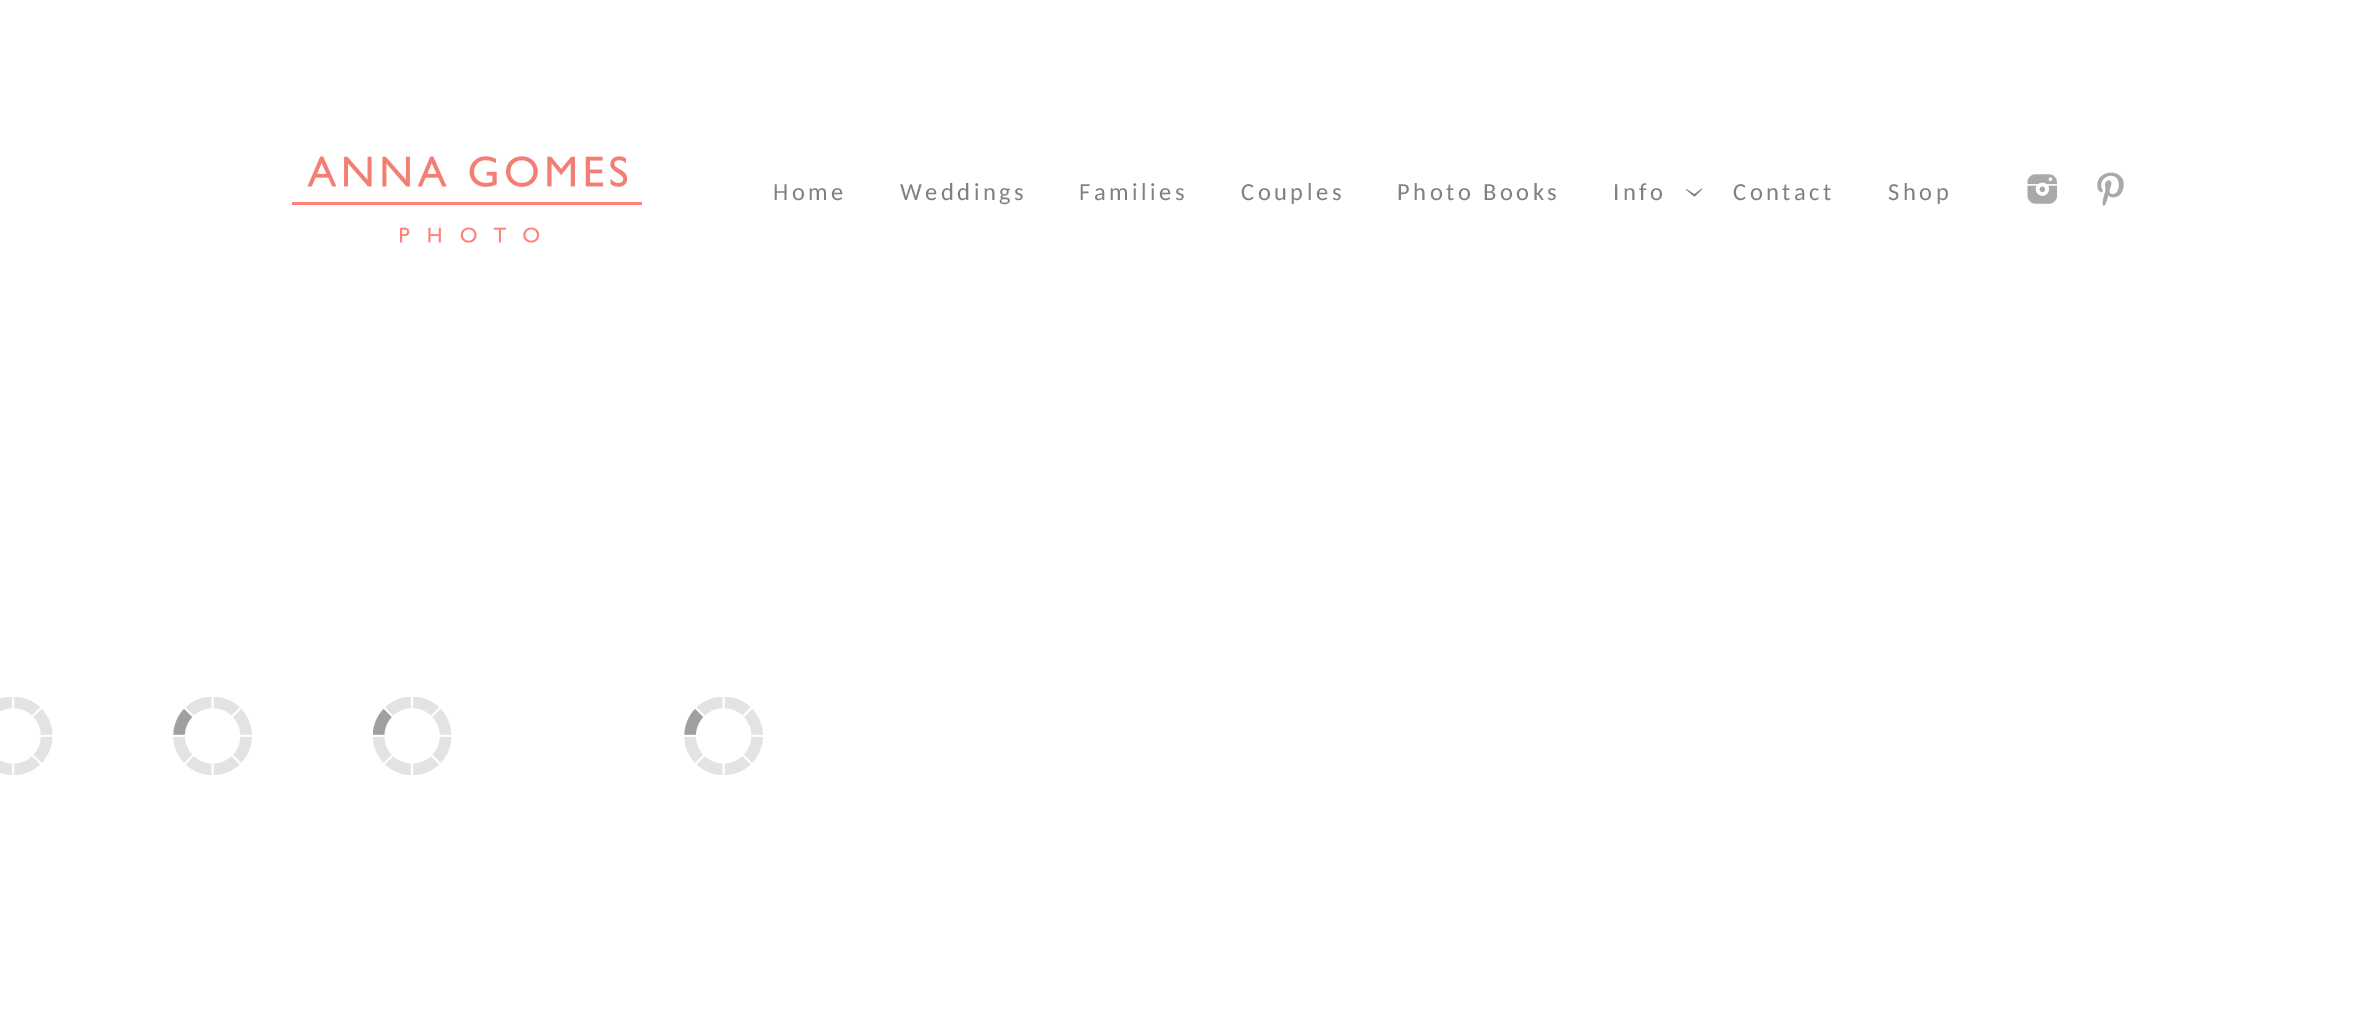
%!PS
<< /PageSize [2361 1031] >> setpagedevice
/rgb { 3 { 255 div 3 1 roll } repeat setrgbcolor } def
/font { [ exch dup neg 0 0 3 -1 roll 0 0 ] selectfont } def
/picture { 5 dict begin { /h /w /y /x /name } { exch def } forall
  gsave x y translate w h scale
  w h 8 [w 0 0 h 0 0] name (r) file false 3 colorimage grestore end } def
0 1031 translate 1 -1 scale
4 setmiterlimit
255 255 255 rgb
0 0 2361 1031 rectfill
(img/1.rgb) 292 156 350 87 picture
(img/2.rgb) 1685 188 18 9 picture
(img/3.rgb) 2027 174 30 30 picture
(img/4.rgb) 2097 172 27 34 picture
(img/5.rgb) 0 697 53 78 picture
(img/6.rgb) 173 697 79 78 picture
(img/7.rgb) 373 697 79 78 picture
(img/6.rgb) 684 697 79 78 picture
/Carlito-Regular 24.5 font
128 128 128 rgb
773 200 moveto 3.5 0 (Home) ashow
900 200 moveto 3.5 0 (Weddings) ashow
1079 200 moveto 3.5 0 (Families) ashow
1241 200 moveto 3.5 0 (Couples) ashow
1397 200 moveto 3.5 0 (Photo Books) ashow
1613 200 moveto 3.5 0 (Info) ashow
1733 200 moveto 3.5 0 (Contact) ashow
1888 200 moveto 3.5 0 (Shop) ashow
showpage
